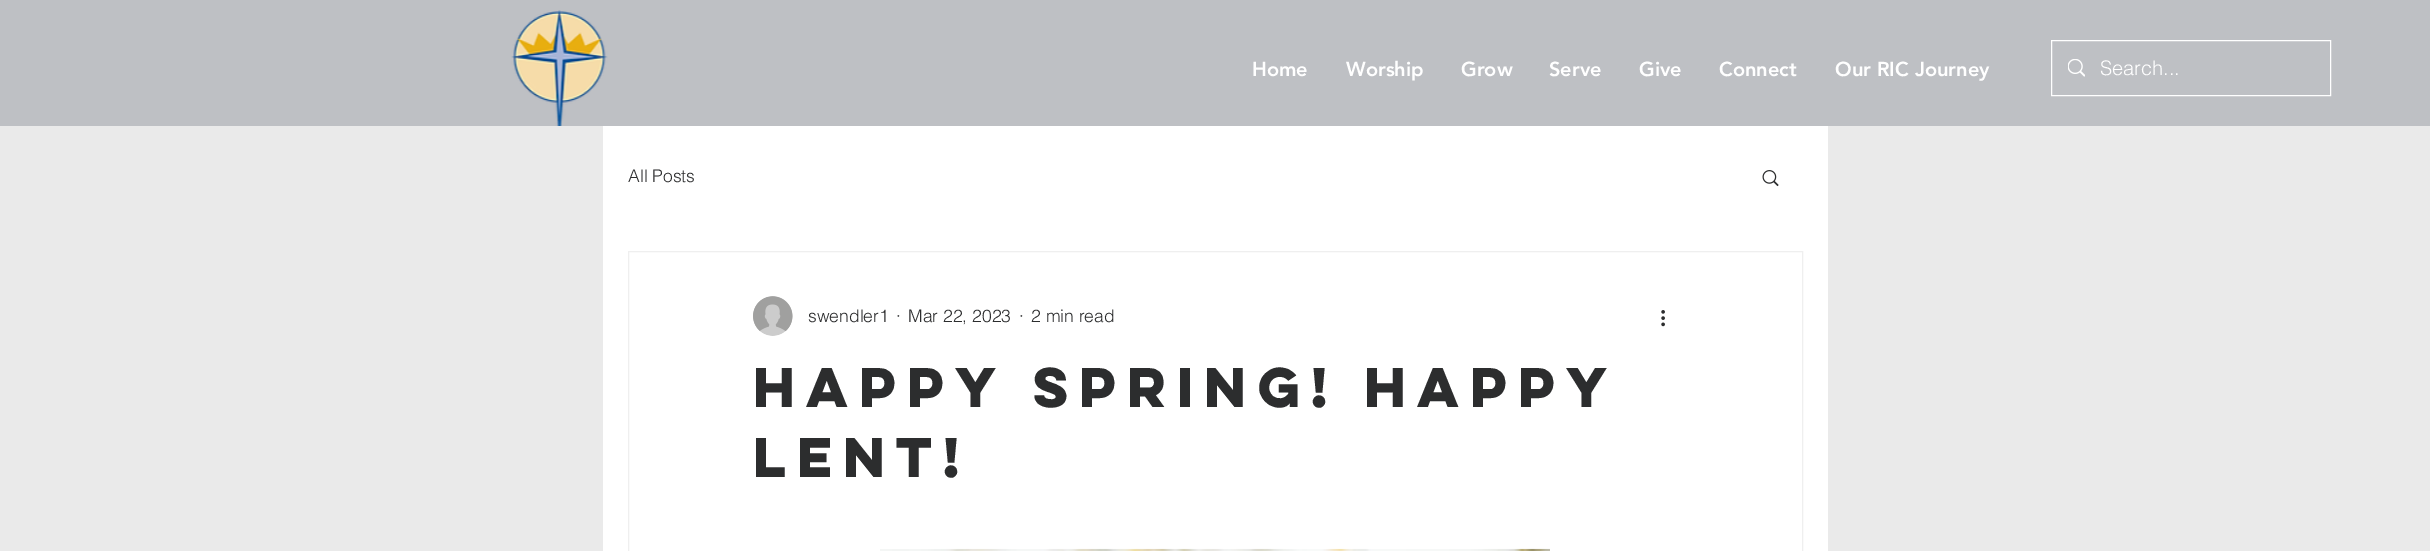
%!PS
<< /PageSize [2430 551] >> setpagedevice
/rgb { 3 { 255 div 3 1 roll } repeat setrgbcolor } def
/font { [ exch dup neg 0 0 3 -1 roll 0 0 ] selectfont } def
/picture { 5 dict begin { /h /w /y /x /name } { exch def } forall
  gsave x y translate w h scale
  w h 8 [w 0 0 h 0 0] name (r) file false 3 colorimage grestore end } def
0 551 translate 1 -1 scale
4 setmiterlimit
234 234 234 rgb
0 0 2430 551 rectfill
190 192 196 rgb
0 0 2430 126 rectfill
(img/1.rgb) 511 10 97 116 picture
255 255 255 rgb
2051.5 40.5 279 55 rectstroke
(img/2.rgb) 2068 59 17 18 picture
603 126 1225 425 rectfill
(img/3.rgb) 1762 170 17 17 picture
239 239 239 rgb
628.5 251.5 1174 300 rectstroke
(img/4.rgb) 753 296 40 40 picture
(img/5.rgb) 1661 310 4 17 picture
(img/6.rgb) 880 548 670 3 picture
/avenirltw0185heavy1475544-Black 20 font
255 255 255 rgb
[
  [(Home) 1252 76]
  [(Worship) 1346 76]
  [(Grow) 1461 76]
  [(Serve) 1549 76]
  [(Give) 1639 76]
  [(Connect) 1719 76]
  [(Our RIC Journey) 1835 76]
] { aload pop moveto show } forall
/helvetica-Light 20 font
2100 75 moveto (Search...) show
/helvetica-Light 17.5 font
44 45 46 rgb
[
  [(All Posts) 628 182]
  [(swendler1) 808 322]
  [(·) 896 322]
  [(Mar 22, 2023) 908 322]
  [(·) 1019 322]
  [(2 min read) 1031 322]
] { aload pop moveto show } forall
/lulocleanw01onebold-Bold 50 font
753 407 moveto (Happy Spring! Happy) show
753 477 moveto (Lent!) show
showpage
